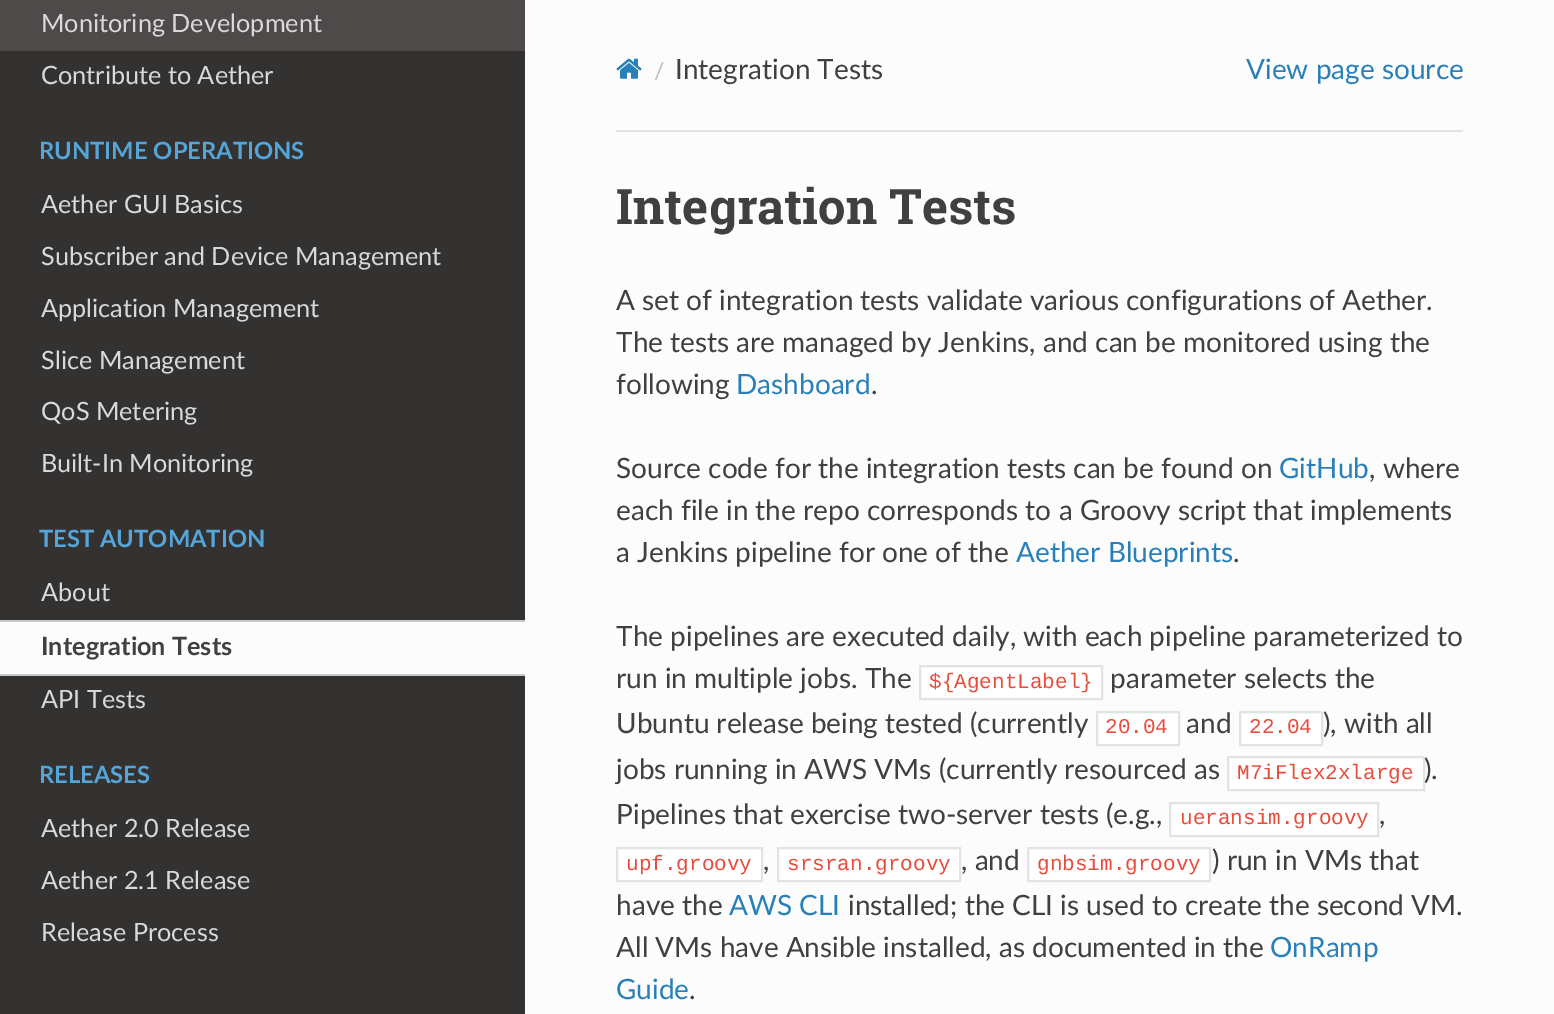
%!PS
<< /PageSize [1554 1014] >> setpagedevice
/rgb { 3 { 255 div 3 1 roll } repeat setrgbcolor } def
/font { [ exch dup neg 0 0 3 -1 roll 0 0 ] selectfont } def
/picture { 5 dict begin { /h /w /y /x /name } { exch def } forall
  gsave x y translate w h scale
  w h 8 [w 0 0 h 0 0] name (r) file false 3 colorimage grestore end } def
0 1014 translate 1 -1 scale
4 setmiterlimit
252 252 252 rgb
0 0 1554 1014 rectfill
[
  [0 51 525 963 52 49 49]
  [0 0 525 51 78 74 74]
  [0 622 525 52 252 252 252]
  [0 620 525 2 201 201 201]
  [0 674 525 2 201 201 201]
] { aload pop rgb rectfill } forall
(img/1.rgb) 616 58 26 21 picture
225 228 229 rgb
616 130 847 2 rectfill
255 255 255 rgb
920 666 moveto 1102 666 lineto 1102 699 lineto 920 699 lineto closepath gsave fill grestore
225 228 229 rgb
2 setlinewidth
stroke
255 255 255 rgb
1097 712 moveto 1179 712 lineto 1179 745 lineto 1097 745 lineto closepath gsave fill grestore
225 228 229 rgb
stroke
255 255 255 rgb
1240 712 moveto 1322 712 lineto 1322 745 lineto 1240 745 lineto closepath gsave fill grestore
225 228 229 rgb
stroke
255 255 255 rgb
1228 757 moveto 1424 757 lineto 1424 790 lineto 1228 790 lineto closepath gsave fill grestore
225 228 229 rgb
stroke
255 255 255 rgb
1170 803 moveto 1378 803 lineto 1378 836 lineto 1170 836 lineto closepath gsave fill grestore
225 228 229 rgb
stroke
255 255 255 rgb
617 848 moveto 762 848 lineto 762 881 lineto 617 881 lineto closepath gsave fill grestore
225 228 229 rgb
stroke
255 255 255 rgb
778 848 moveto 960 848 lineto 960 881 lineto 778 881 lineto closepath gsave fill grestore
225 228 229 rgb
stroke
255 255 255 rgb
1028 848 moveto 1210 848 lineto 1210 881 lineto 1028 881 lineto closepath gsave fill grestore
225 228 229 rgb
stroke
/Lato-Regular 25.25 font
217 217 217 rgb
41 32 moveto (Monitoring Development) show
41 84 moveto (Contribute to Aether) show
/Lato-Bold 23.75 font
85 165 217 rgb
39 159 moveto (RUNTIME OPERATIONS) show
/Lato-Regular 25.25 font
217 217 217 rgb
[
  [(Aether GUI Basics) 41 213]
  [(Subscriber and Device Management) 41 265]
  [(Application Management) 41 317]
  [(Slice Management) 41 369]
  [(QoS Metering) 41 420]
  [(Built-In Monitoring) 41 472]
] { aload pop moveto show } forall
/Lato-Bold 23.75 font
85 165 217 rgb
39 547 moveto (TEST AUTOMATION) show
/Lato-Regular 25.25 font
217 217 217 rgb
41 601 moveto (About) show
/Lato-Bold 25.25 font
64 64 64 rgb
41 655 moveto (Integration Tests) show
/Lato-Regular 25.25 font
217 217 217 rgb
41 708 moveto (API Tests) show
/Lato-Bold 23.75 font
85 165 217 rgb
39 783 moveto (RELEASES) show
/Lato-Regular 25.25 font
217 217 217 rgb
[
  [(Aether 2.0 Release) 41 837]
  [(Aether 2.1 Release) 41 889]
  [(Release Process) 41 941]
] { aload pop moveto show } forall
/Lato-Regular 23 font
187 187 187 rgb
654 79 moveto (/) show
/Lato-Regular 28 font
64 64 64 rgb
675 79 moveto (Integration Tests) show
41 128 185 rgb
1246 79 moveto (View page source) show
/RobotoSlab-Bold 49 font
64 64 64 rgb
616 224 moveto (Integration Tests) show
/Lato-Regular 28 font
[
  [(A set of integration tests validate various configurations of Aether.) 616 310]
  [(The tests are managed by Jenkins, and can be monitored using the) 616 352]
  [(following) 616 394]
] { aload pop moveto show } forall
41 128 185 rgb
736 394 moveto (Dashboard) show
64 64 64 rgb
871 394 moveto (.) show
616 478 moveto (Source code for the integration tests can be found on) show
41 128 185 rgb
1279 478 moveto (GitHub) show
64 64 64 rgb
[
  [(, where) 1369 478]
  [(each file in the repo corresponds to a Groovy script that implements) 616 520]
  [(a Jenkins pipeline for one of the) 616 562]
] { aload pop moveto show } forall
41 128 185 rgb
1016 562 moveto (Aether Blueprints) show
64 64 64 rgb
[
  [(.) 1233 562]
  [(The pipelines are executed daily, with each pipeline parameterized to) 616 646]
  [(run in multiple jobs. The) 616 688]
] { aload pop moveto show } forall
/LiberationMono-Regular 21 font
231 76 60 rgb
929 688 moveto (${AgentLabel}) show
/Lato-Regular 28 font
64 64 64 rgb
1110 688 moveto (parameter selects the) show
616 733 moveto (Ubuntu release being tested \(currently) show
/LiberationMono-Regular 21 font
231 76 60 rgb
1105 733 moveto (20.04) show
/Lato-Regular 28 font
64 64 64 rgb
1186 733 moveto (and) show
/LiberationMono-Regular 21 font
231 76 60 rgb
1249 733 moveto (22.04) show
/Lato-Regular 28 font
64 64 64 rgb
1323 733 moveto (\), with all) show
616 779 moveto (jobs running in AWS VMs \(currently resourced as) show
/LiberationMono-Regular 21 font
231 76 60 rgb
1237 779 moveto (M7iFlex2xlarge) show
/Lato-Regular 28 font
64 64 64 rgb
1424 779 moveto (\).) show
616 824 moveto (Pipelines that exercise two-server tests \(e.g.,) show
/LiberationMono-Regular 21 font
231 76 60 rgb
1180 824 moveto (ueransim.groovy) show
/Lato-Regular 28 font
64 64 64 rgb
1379 824 moveto (,) show
/LiberationMono-Regular 21 font
231 76 60 rgb
626 870 moveto (upf.groovy) show
/Lato-Regular 28 font
64 64 64 rgb
763 870 moveto (,) show
/LiberationMono-Regular 21 font
231 76 60 rgb
787 870 moveto (srsran.groovy) show
/Lato-Regular 28 font
64 64 64 rgb
961 870 moveto (, and) show
/LiberationMono-Regular 21 font
231 76 60 rgb
1037 870 moveto (gnbsim.groovy) show
/Lato-Regular 28 font
64 64 64 rgb
1212 870 moveto (\) run in VMs that) show
616 915 moveto (have the) show
41 128 185 rgb
729 915 moveto (AWS CLI) show
64 64 64 rgb
848 915 moveto (installed; the CLI is used to create the second VM.) show
616 957 moveto (All VMs have Ansible installed, as documented in the) show
41 128 185 rgb
1270 957 moveto (OnRamp) show
616 999 moveto (Guide) show
64 64 64 rgb
689 999 moveto (.) show
showpage
